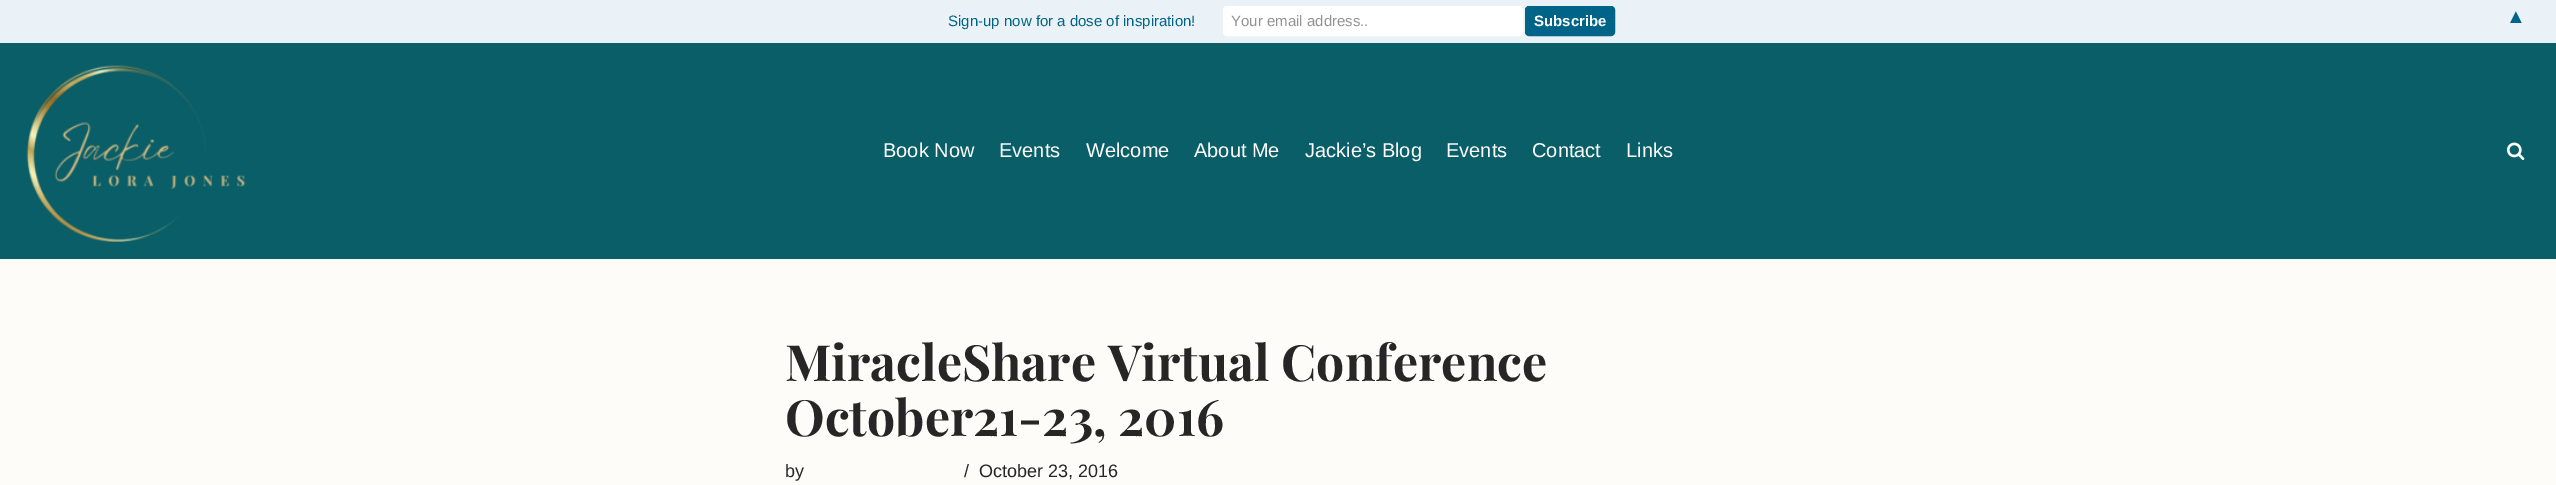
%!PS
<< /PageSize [2556 485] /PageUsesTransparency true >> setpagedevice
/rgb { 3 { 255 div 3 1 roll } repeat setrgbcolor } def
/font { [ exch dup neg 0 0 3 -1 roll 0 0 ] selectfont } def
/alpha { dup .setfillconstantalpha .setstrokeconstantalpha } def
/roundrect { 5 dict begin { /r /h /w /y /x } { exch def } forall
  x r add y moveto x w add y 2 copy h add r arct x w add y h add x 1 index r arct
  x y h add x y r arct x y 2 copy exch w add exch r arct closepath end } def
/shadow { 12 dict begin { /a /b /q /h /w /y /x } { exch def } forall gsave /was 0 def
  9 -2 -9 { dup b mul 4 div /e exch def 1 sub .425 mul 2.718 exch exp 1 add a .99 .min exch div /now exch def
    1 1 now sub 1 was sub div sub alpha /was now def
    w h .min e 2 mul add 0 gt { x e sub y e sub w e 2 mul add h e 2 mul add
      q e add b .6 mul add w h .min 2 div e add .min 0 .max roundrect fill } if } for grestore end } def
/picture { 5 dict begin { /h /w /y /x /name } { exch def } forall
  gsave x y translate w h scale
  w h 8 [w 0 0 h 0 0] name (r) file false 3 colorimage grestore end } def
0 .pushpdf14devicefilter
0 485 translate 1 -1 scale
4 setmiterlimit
254 252 249 rgb
0 0 2556 485 rectfill
0 0 0 rgb
0 41 2556 217 0 2 0.1 shadow
234 241 247 rgb
0 0 2556 43 rectfill
255 255 255 rgb
1223.5 6.5 299 29 3.5 roundrect gsave fill grestore
stroke
0 100 137 rgb
1525.5 6.5 89 29 3.5 roundrect gsave fill grestore
stroke
9 94 103 rgb
0 43 2556 216 rectfill
(img/1.rgb) 26 65 220 177 picture
(img/2.rgb) 2506 142 19 18 picture
/LiberationSans-Regular 15 font
0 100 137 rgb
948 26 moveto (Sign-up now for a dose of inspiration!) show
147 147 147 rgb
1231 26 moveto (Your email address..) show
/LiberationSans-Bold 15 font
255 255 255 rgb
1534 26 moveto (Subscribe) show
/LiberationSans-Regular 20 font
0 100 137 rgb
2506 23 moveto (▲) show
255 255 255 rgb
[
  [(Book Now) 883 157]
  [(Events) 999 157]
  [(Welcome) 1086 157]
  [(About Me) 1194 157]
  [(Jackie’s Blog) 1305 157]
  [(Events) 1446 157]
  [(Contact) 1532 157]
  [(Links) 1626 157]
] { aload pop moveto show } forall
/PlayfairDisplay-Bold 50 font
39 38 38 rgb
785 381 moveto (MiracleShare Virtual Conference) show
785 436 moveto (October21-23, 2016) show
/LiberationSans-Regular 18 font
[
  [(by) 785 477]
  [(/) 964 477]
  [(October 23, 2016) 979 477]
] { aload pop moveto show } forall
.poppdf14devicefilter showpage
